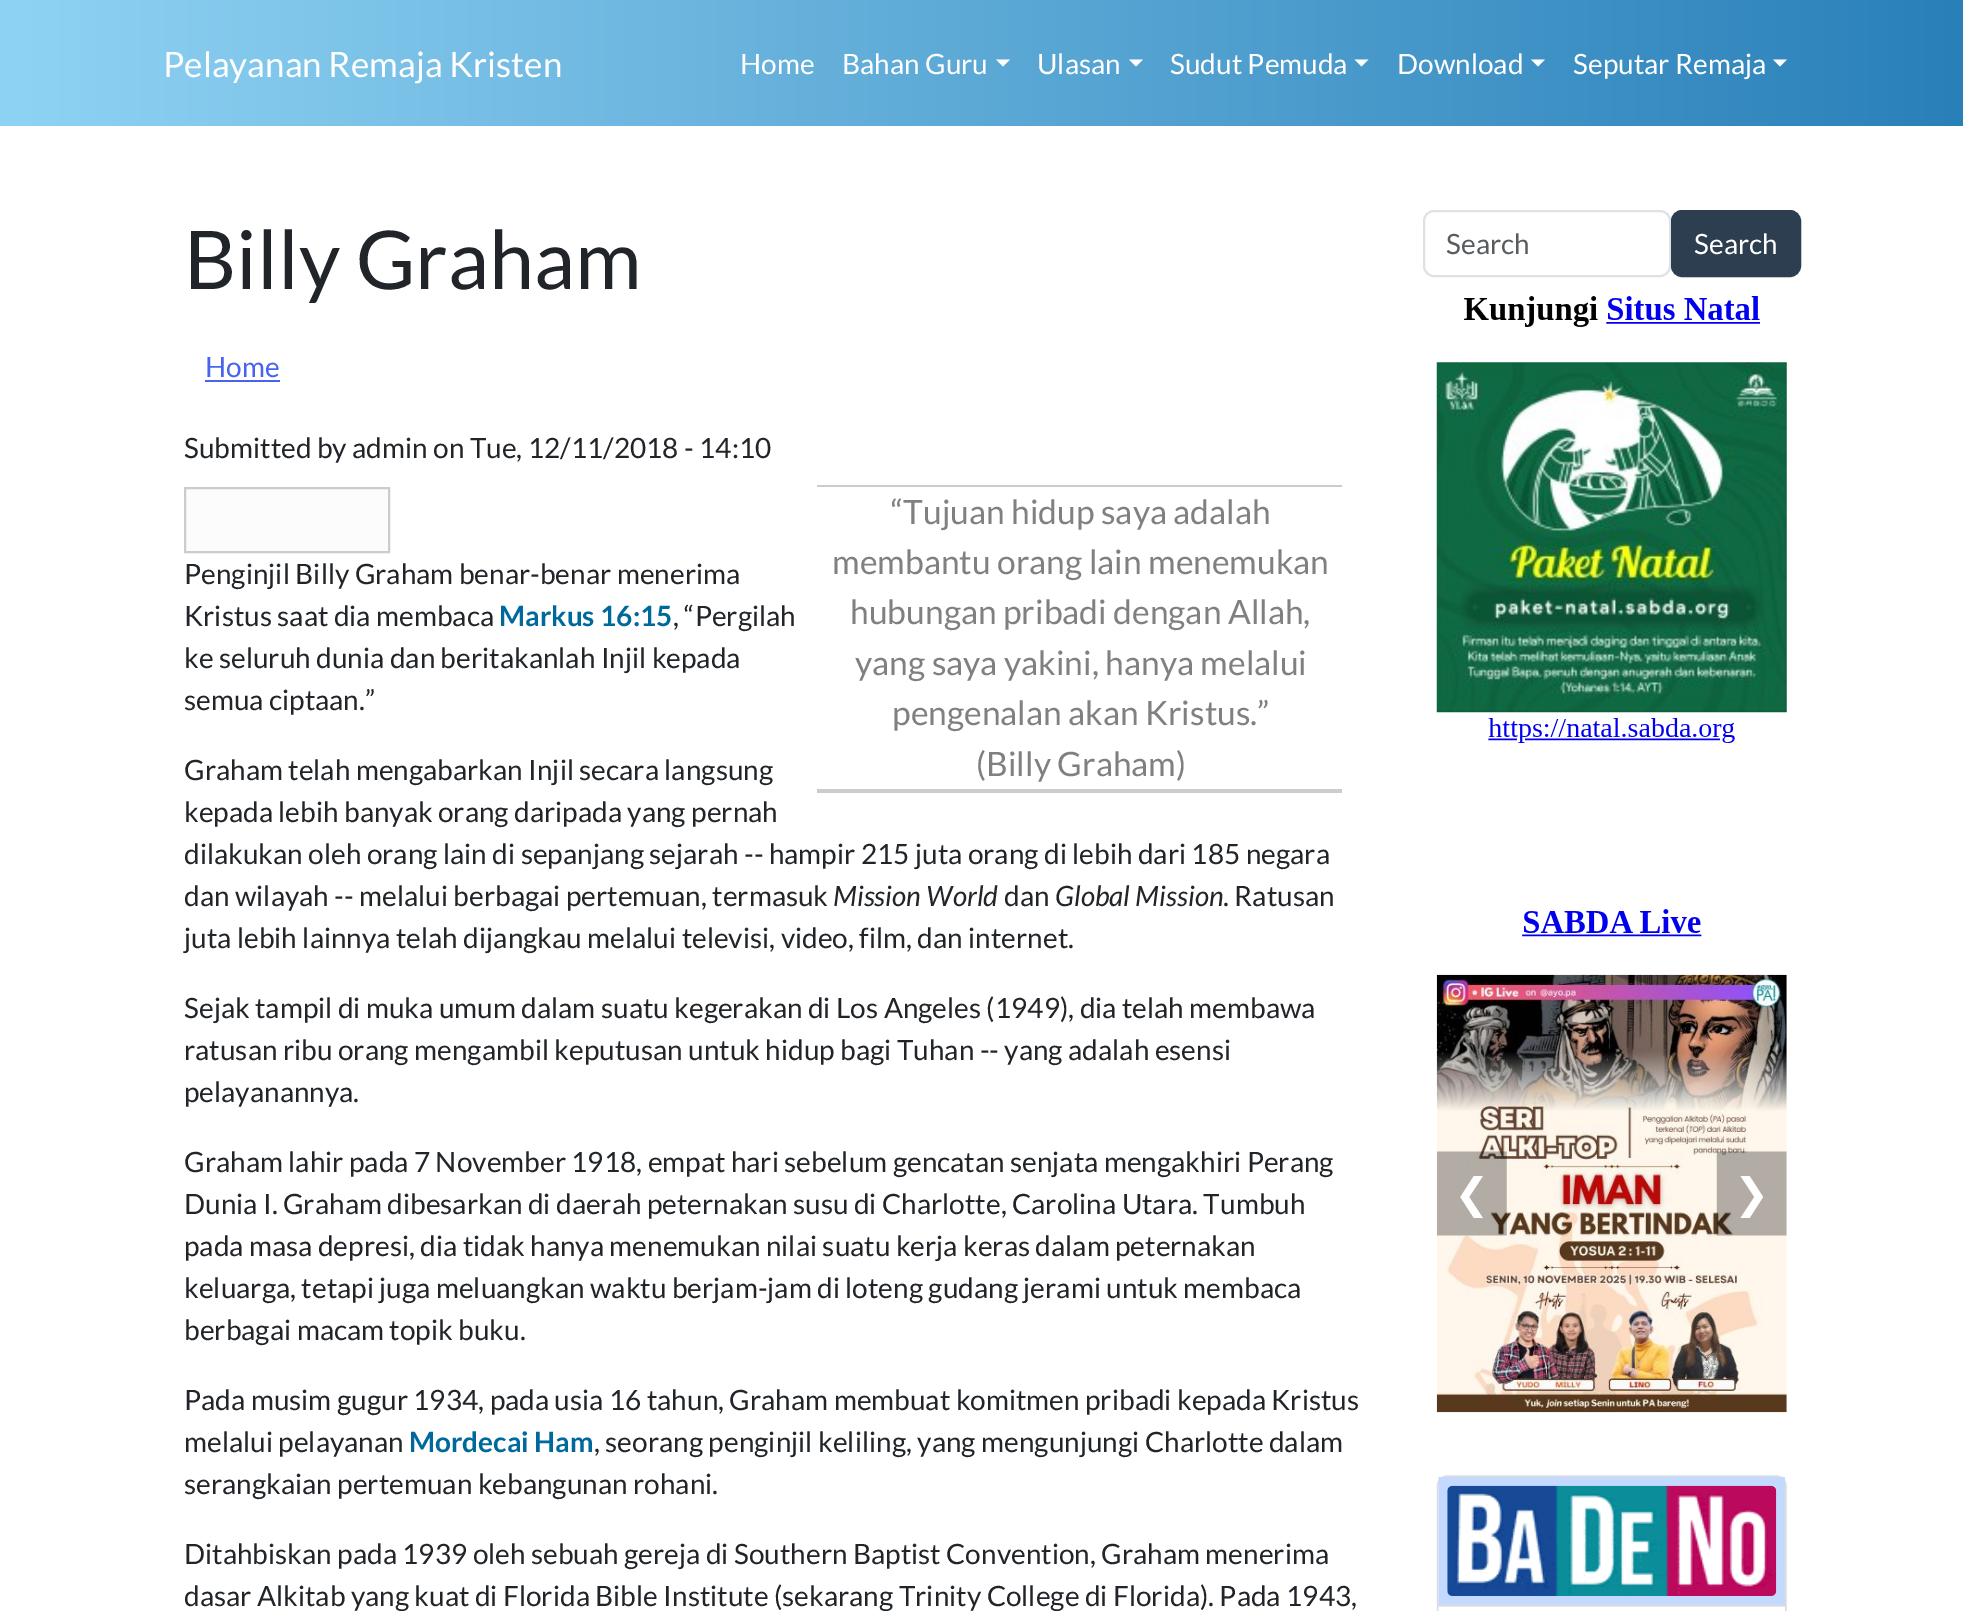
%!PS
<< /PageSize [1963 1611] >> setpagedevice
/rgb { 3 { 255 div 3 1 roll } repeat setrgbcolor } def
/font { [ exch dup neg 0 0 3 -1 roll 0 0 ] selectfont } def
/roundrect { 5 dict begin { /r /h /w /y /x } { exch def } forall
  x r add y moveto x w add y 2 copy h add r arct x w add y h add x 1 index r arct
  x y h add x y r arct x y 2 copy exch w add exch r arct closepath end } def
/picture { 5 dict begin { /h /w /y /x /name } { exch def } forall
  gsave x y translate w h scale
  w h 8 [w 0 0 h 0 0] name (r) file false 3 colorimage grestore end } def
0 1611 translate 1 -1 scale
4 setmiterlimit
255 255 255 rgb
0 0 1963 1611 rectfill
gsave 0 0 moveto 1963 0 lineto 1963 126 lineto 0 126 lineto closepath clip newpath
<< /ShadingType 2 /ColorSpace /DeviceRGB /Coords [0 63 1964 63] /Extend [true true] /Function << /FunctionType 2 /Domain [0 1] /C0 [0.561 0.827 0.957] /C1 [0.161 0.502 0.725] /N 1 >> >> shfill grestore
996 59.5 moveto 1010 59.5 lineto 1003 66.5 lineto closepath fill
1129 59.5 moveto 1143 59.5 lineto 1136 66.5 lineto closepath fill
1354.5 59.5 moveto 1368.5 59.5 lineto 1361.5 66.5 lineto closepath fill
1531 59.5 moveto 1545 59.5 lineto 1538 66.5 lineto closepath fill
1773 59.5 moveto 1787 59.5 lineto 1780 66.5 lineto closepath fill
71 99 240 rgb
205 380 75 2 rectfill
252 252 252 rgb
185 488 moveto 389 488 lineto 389 552 lineto 185 552 lineto closepath gsave fill grestore
204 204 204 rgb
2 setlinewidth
stroke
817 485 525 2 rectfill
817 789 525 4 rectfill
222 226 230 rgb
1424 211 246 65 10 roundrect stroke
44 62 80 rgb
1672 211 128 65 10 roundrect gsave fill grestore
stroke
(img/1.rgb) 1436 296 351 447 picture
(img/2.rgb) 1436 909 351 702 picture
/Lato-Regular 35 font
255 255 255 rgb
163 77 moveto (Pelayanan Remaja Kristen) show
/Lato-Regular 28 font
[
  [(Home) 740 74]
  [(Bahan Guru) 842 74]
  [(Ulasan) 1037 74]
  [(Sudut Pemuda) 1170 74]
  [(Download) 1397 74]
  [(Seputar Remaja) 1573 74]
] { aload pop moveto show } forall
/Lato-Regular 81 font
33 37 41 rgb
184 289 moveto (Billy Graham) show
/Lato-Regular 28 font
71 99 240 rgb
205 377 moveto (Home) show
33 37 41 rgb
[
  [(Submitted by admin on Tue, 12/11/2018 - 14:10) 184 458]
  [(Penginjil Billy Graham benar-benar menerima) 184 584]
  [(Kristus saat dia membaca) 184 626]
] { aload pop moveto show } forall
/Lato-Bold 28 font
0 105 156 rgb
499 626 moveto (Markus 16:15) show
/Lato-Regular 28 font
33 37 41 rgb
[
  [(, “Pergilah) 673 626]
  [(ke seluruh dunia dan beritakanlah Injil kepada) 184 668]
  [(semua ciptaan.”) 184 710]
] { aload pop moveto show } forall
/Lato-Regular 33.6 font
128 128 128 rgb
[
  [(“Tujuan hidup saya adalah) 891 524]
  [(membantu orang lain menemukan) 832 574]
  [(hubungan pribadi dengan Allah,) 850 624]
  [(yang saya yakini, hanya melalui) 855 675]
  [(pengenalan akan Kristus.”) 892 725]
  [(\(Billy Graham\)) 976 776]
] { aload pop moveto show } forall
/Lato-Regular 28 font
33 37 41 rgb
[
  [(Graham telah mengabarkan Injil secara langsung) 184 780]
  [(kepada lebih banyak orang daripada yang pernah) 184 822]
  [(dilakukan oleh orang lain di sepanjang sejarah -- hampir 215 juta orang di lebih dari 185 negara) 184 864]
  [(dan wilayah -- melalui berbagai pertemuan, termasuk) 184 906]
] { aload pop moveto show } forall
/Lato-Italic 28 font
833 906 moveto (Mission World) show
/Lato-Regular 28 font
1004 906 moveto (dan) show
/Lato-Italic 28 font
1055 906 moveto (Global Mission) show
/Lato-Regular 28 font
[
  [(. Ratusan) 1223 906]
  [(juta lebih lainnya telah dijangkau melalui televisi, video, film, dan internet.) 184 948]
  [(Sejak tampil di muka umum dalam suatu kegerakan di Los Angeles \(1949\), dia telah membawa) 184 1018]
  [(ratusan ribu orang mengambil keputusan untuk hidup bagi Tuhan -- yang adalah esensi) 184 1060]
  [(pelayanannya.) 184 1102]
  [(Graham lahir pada 7 November 1918, empat hari sebelum gencatan senjata mengakhiri Perang) 184 1172]
  [(Dunia I. Graham dibesarkan di daerah peternakan susu di Charlotte, Carolina Utara. Tumbuh) 184 1214]
  [(pada masa depresi, dia tidak hanya menemukan nilai suatu kerja keras dalam peternakan) 184 1256]
  [(keluarga, tetapi juga meluangkan waktu berjam-jam di loteng gudang jerami untuk membaca) 184 1298]
  [(berbagai macam topik buku.) 184 1340]
  [(Pada musim gugur 1934, pada usia 16 tahun, Graham membuat komitmen pribadi kepada Kristus) 184 1410]
  [(melalui pelayanan) 184 1452]
] { aload pop moveto show } forall
/Lato-Bold 28 font
0 105 156 rgb
409 1452 moveto (Mordecai Ham) show
/Lato-Regular 28 font
33 37 41 rgb
[
  [(, seorang penginjil keliling, yang mengunjungi Charlotte dalam) 594 1452]
  [(serangkaian pertemuan kebangunan rohani.) 184 1494]
  [(Ditahbiskan pada 1939 oleh sebuah gereja di Southern Baptist Convention, Graham menerima) 184 1564]
  [(dasar Alkitab yang kuat di Florida Bible Institute \(sekarang Trinity College di Florida\). Pada 1943,) 184 1606]
] { aload pop moveto show } forall
89 92 95 rgb
1446 254 moveto (Search) show
255 255 255 rgb
1694 254 moveto (Search) show
showpage
